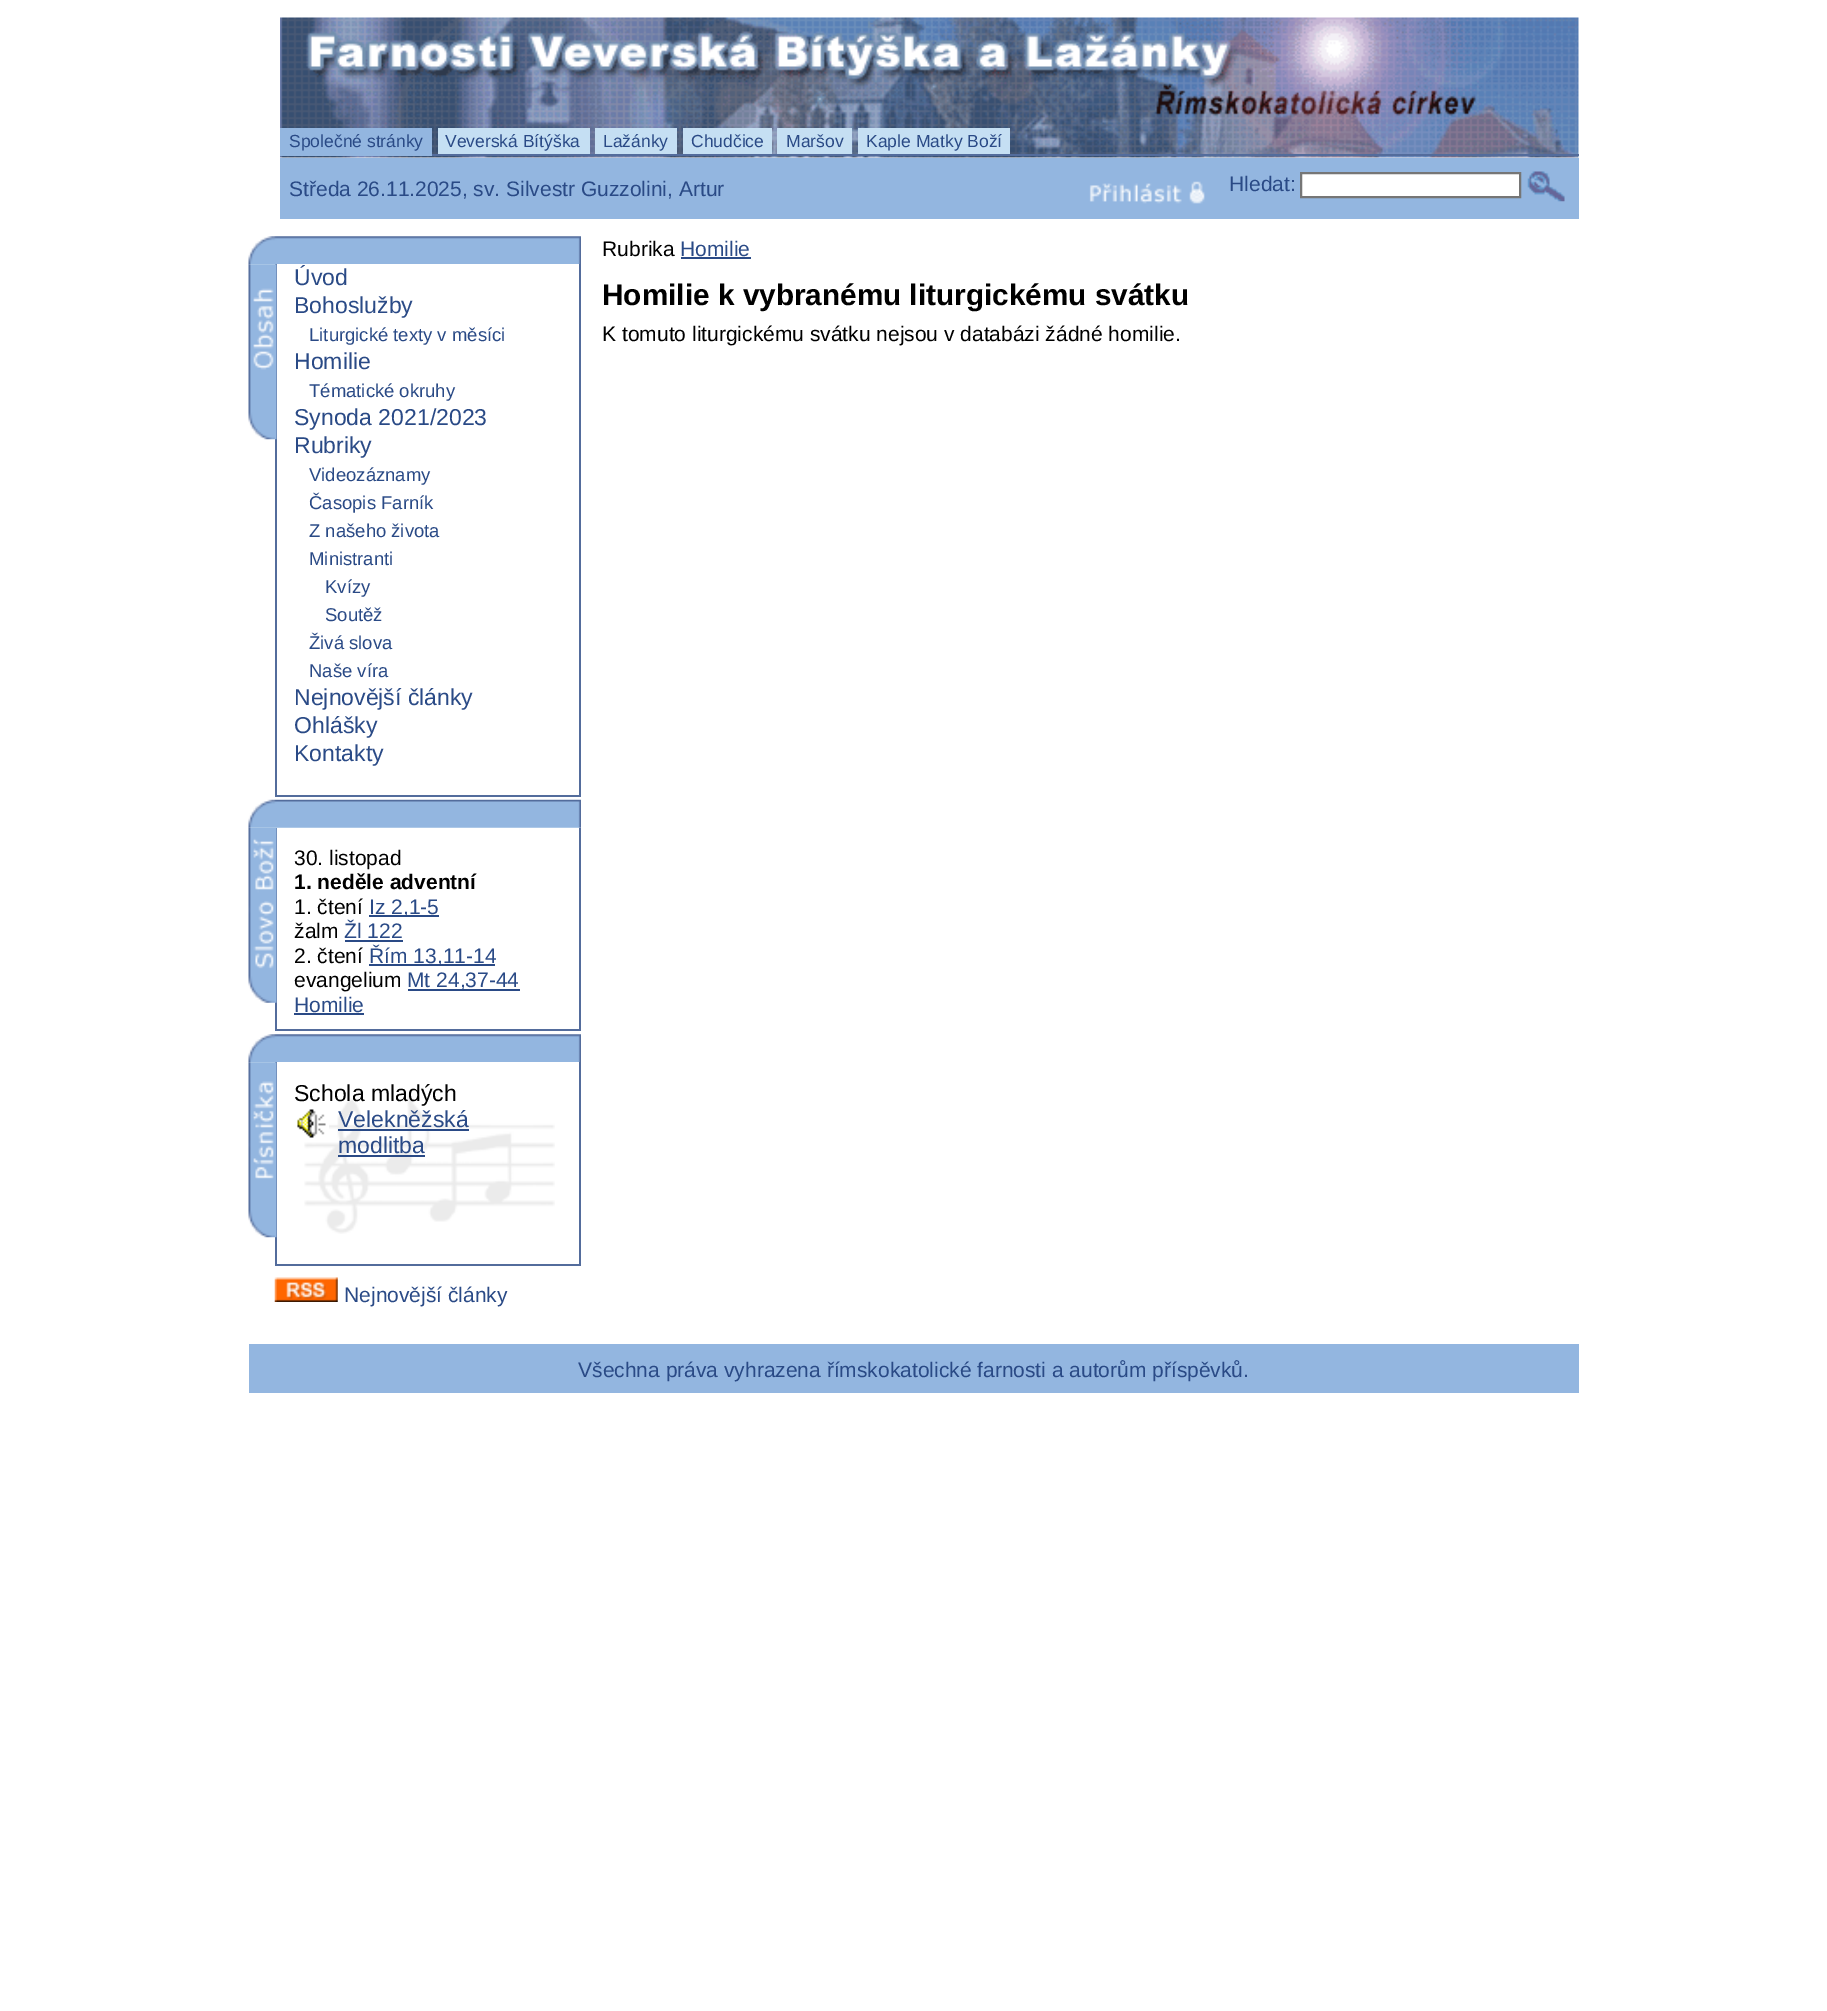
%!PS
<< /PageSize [1827 2011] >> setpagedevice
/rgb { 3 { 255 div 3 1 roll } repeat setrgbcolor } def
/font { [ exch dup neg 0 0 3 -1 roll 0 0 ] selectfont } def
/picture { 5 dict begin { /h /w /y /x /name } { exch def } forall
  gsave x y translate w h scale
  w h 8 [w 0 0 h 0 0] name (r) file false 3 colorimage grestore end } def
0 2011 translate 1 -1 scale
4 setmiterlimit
255 255 255 rgb
0 0 1827 2011 rectfill
(img/1.rgb) 280 17 1299 141 picture
[
  [280 158 1299 61 147 182 224]
  [432 154 1147 2 83 108 156]
  [280 128 152 28 147 182 224]
  [438 128 152 26 197 223 243]
  [595 128 82 26 197 223 243]
  [683 128 89 26 197 223 243]
  [777 128 75 26 197 223 243]
  [858 128 152 26 197 223 243]
] { aload pop rgb rectfill } forall
(img/2.rgb) 1089 181 116 23 picture
255 255 255 rgb
1301 173 moveto 1520 173 lineto 1520 197 lineto 1301 197 lineto closepath gsave fill grestore
118 118 118 rgb
2 setlinewidth
stroke
(img/3.rgb) 1527 171 38 31 picture
(img/4.rgb) 248 236 333 29 picture
[
  [579 264 2 532 83 108 156]
  [275 795 306 2 83 108 156]
  [275 264 2 532 83 108 156]
] { aload pop rgb rectfill } forall
(img/5.rgb) 248 264 29 176 picture
255 255 255 rgb
277 264 302 1 rectfill
(img/6.rgb) 248 799 333 29 picture
[
  [579 828 2 203 83 108 156]
  [275 1029 306 2 83 108 156]
  [275 828 2 203 83 108 156]
] { aload pop rgb rectfill } forall
(img/7.rgb) 248 827 29 176 picture
[
  [369 915 70 2 42 74 134]
  [345 940 58 2 42 74 134]
  [369 964 126 2 42 74 134]
  [408 989 112 2 42 74 134]
  [294 1013 70 2 42 74 134]
] { aload pop rgb rectfill } forall
(img/4.rgb) 248 1034 333 29 picture
[
  [579 1062 2 203 83 108 156]
  [275 1264 306 2 83 108 156]
  [275 1062 2 203 83 108 156]
] { aload pop rgb rectfill } forall
(img/8.rgb) 248 1062 29 176 picture
255 255 255 rgb
277 1062 302 1 rectfill
(img/9.rgb) 304 1093 251 141 picture
(img/10.rgb) 297 1109 32 29 picture
42 74 134 rgb
338 1129 131 2 rectfill
338 1155 87 2 rectfill
(img/11.rgb) 274 1277 64 25 picture
681 257 70 2 rectfill
147 182 224 rgb
249 1344 1330 49 rectfill
/LiberationSans-Regular 17.5 font
42 74 134 rgb
[
  [(Společné stránky) 289 147]
  [(Veverská Bítýška) 445 147]
  [(Lažánky) 603 147]
  [(Chudčice) 691 147]
  [(Maršov) 786 147]
  [(Kaple Matky Boží) 866 147]
] { aload pop moveto show } forall
/LiberationSans-Regular 21 font
289 196 moveto (Středa 26.11.2025, sv. Silvestr Guzzolini, Artur) show
1229 191 moveto (Hledat:) show
/LiberationSans-Regular 23 font
294 285 moveto (Úvod) show
294 313 moveto (Bohoslužby) show
/LiberationSans-Regular 18.5 font
309 341 moveto (Liturgické texty v měsíci) show
/LiberationSans-Regular 23 font
294 369 moveto (Homilie) show
/LiberationSans-Regular 18.5 font
309 397 moveto (Tématické okruhy) show
/LiberationSans-Regular 23 font
294 425 moveto (Synoda 2021/2023) show
294 453 moveto (Rubriky) show
/LiberationSans-Regular 18.5 font
[
  [(Videozáznamy) 309 481]
  [(Časopis Farník) 309 509]
  [(Z našeho života) 309 537]
  [(Ministranti) 309 565]
  [(Kvízy) 325 593]
  [(Soutěž) 325 621]
  [(Živá slova) 309 649]
  [(Naše víra) 309 677]
] { aload pop moveto show } forall
/LiberationSans-Regular 23 font
[
  [(Nejnovější články) 294 705]
  [(Ohlášky) 294 733]
  [(Kontakty) 294 761]
] { aload pop moveto show } forall
/LiberationSans-Regular 21 font
0 0 0 rgb
294 865 moveto (30. listopad) show
/LiberationSans-Bold 21 font
294 889 moveto (1. neděle adventní) show
/LiberationSans-Regular 21 font
294 914 moveto (1. čtení) show
42 74 134 rgb
369 914 moveto (Iz 2,1-5) show
0 0 0 rgb
294 938 moveto (žalm) show
42 74 134 rgb
344 938 moveto (Žl 122) show
0 0 0 rgb
294 963 moveto (2. čtení) show
42 74 134 rgb
369 963 moveto (Řím 13,11-14) show
0 0 0 rgb
294 987 moveto (evangelium) show
42 74 134 rgb
407 987 moveto (Mt 24,37-44) show
294 1012 moveto (Homilie) show
/LiberationSans-Regular 23 font
0 0 0 rgb
294 1101 moveto (Schola mladých) show
42 74 134 rgb
338 1127 moveto (Velekněžská) show
338 1153 moveto (modlitba) show
/LiberationSans-Regular 21 font
344 1302 moveto (Nejnovější články) show
0 0 0 rgb
602 256 moveto (Rubrika) show
42 74 134 rgb
680 256 moveto (Homilie) show
/LiberationSans-Bold 29.75 font
0 0 0 rgb
602 305 moveto (Homilie k vybranému liturgickému svátku) show
/LiberationSans-Regular 21 font
602 341 moveto (K tomuto liturgickému svátku nejsou v databázi žádné homilie.) show
42 74 134 rgb
578 1377 moveto (Všechna práva vyhrazena římskokatolické farnosti a autorům příspěvků.) show
showpage
